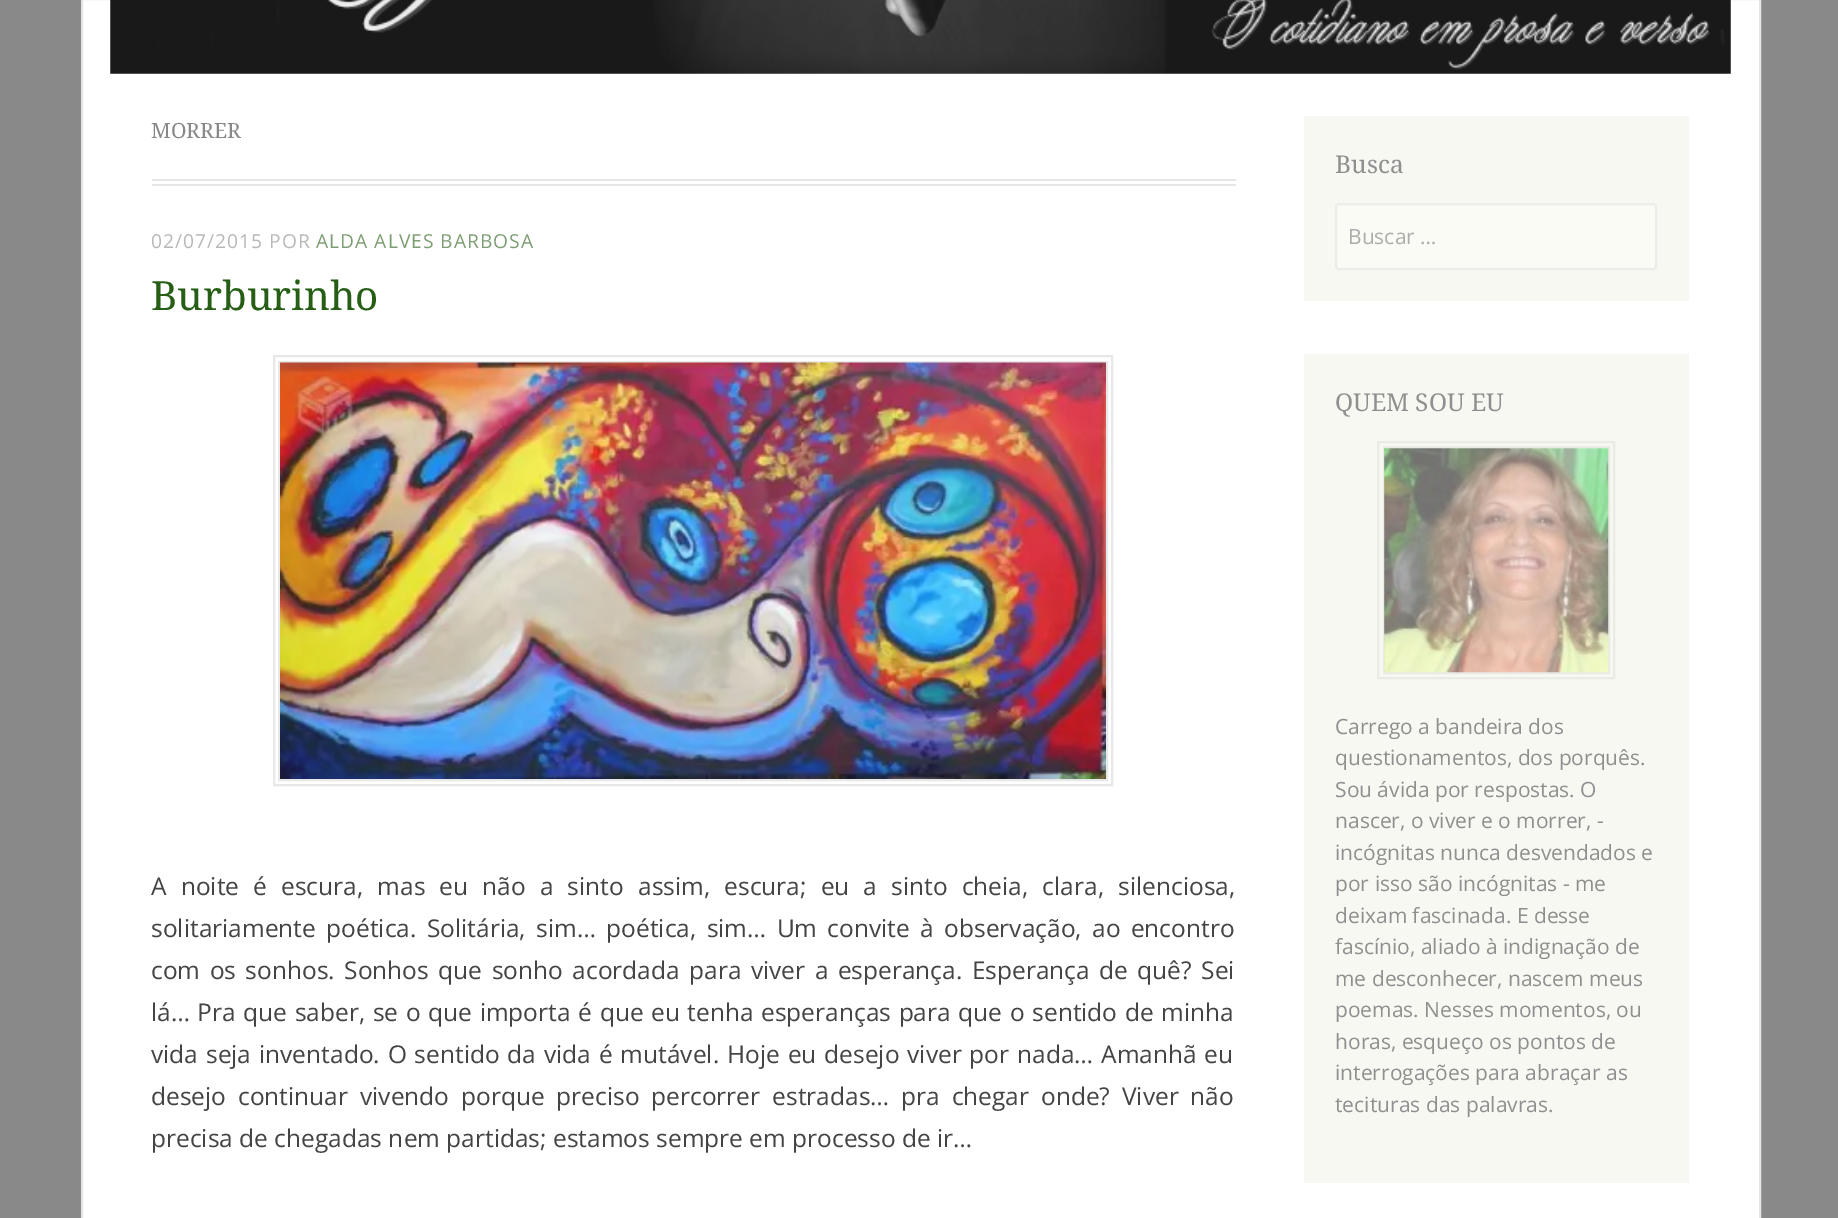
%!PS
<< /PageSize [1838 1218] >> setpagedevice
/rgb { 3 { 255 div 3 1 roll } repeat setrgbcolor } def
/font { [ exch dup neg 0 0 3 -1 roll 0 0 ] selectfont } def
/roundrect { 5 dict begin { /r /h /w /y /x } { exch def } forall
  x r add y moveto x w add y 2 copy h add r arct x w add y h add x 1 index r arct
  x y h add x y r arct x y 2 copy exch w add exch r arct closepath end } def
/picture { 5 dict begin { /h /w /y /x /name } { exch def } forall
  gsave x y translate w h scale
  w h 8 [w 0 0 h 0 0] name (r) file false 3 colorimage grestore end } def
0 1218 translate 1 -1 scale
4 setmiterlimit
137 137 137 rgb
0 0 1838 1218 rectfill
255 255 255 rgb
82 -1 moveto 1760 -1 lineto 1760 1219 lineto 82 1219 lineto closepath gsave fill grestore
229 229 229 rgb
2 setlinewidth
stroke
(img/1.rgb) 110 0 1621 74 picture
230 230 230 rgb
152 179 1084 2 rectfill
152 184 1084 2 rectfill
232 232 232 rgb
274 356 838 429 rectstroke
279 362 828 418 rectstroke
(img/2.rgb) 280 362 826 417 picture
248 248 243 rgb
1304 116 385 185 rectfill
251 251 246 rgb
1336 204 320 65 3 roundrect gsave fill grestore
236 236 232 rgb
stroke
248 248 243 rgb
1304 354 385 829 rectfill
235 235 230 rgb
1378 442 236 236 rectstroke
1384 447 225 226 rectstroke
(img/3.rgb) 1384 448 225 225 picture
/DroidSerif-Regular 21 font
136 136 136 rgb
151 138 moveto (MORRER) show
/OpenSans-Regular 19.25 font
184 184 184 rgb
151 248 moveto 1 0 (02/07/2015 POR) ashow
125 158 115 rgb
316 248 moveto 1 0 (ALDA ALVES BARBOSA) ashow
/DroidSerif-Regular 40.25 font
38 94 21 rgb
151 310 moveto (Burburinho) show
/OpenSans-Regular 24.5 font
68 68 68 rgb
151 895 moveto 7.75 0 32 (A noite é escura, mas eu não a sinto assim, escura; eu a sinto cheia, clara, silenciosa,) widthshow
151 937 moveto 4 0 32 (solitariamente poética. Solitária, sim… poética, sim… Um convite à observação, ao encontro) widthshow
151 979 moveto 3.1 0 32 (com os sonhos. Sonhos que sonho acordada para viver a esperança. Esperança de quê? Sei) widthshow
151 1021 moveto 1.25 0 32 (lá… Pra que saber, se o que importa é que eu tenha esperanças para que o sentido de minha) widthshow
151 1063 moveto 1.5 0 32 (vida seja inventado. O sentido da vida é mutável. Hoje eu desejo viver por nada… Amanhã eu) widthshow
151 1105 moveto 5.5 0 32 (desejo continuar vivendo porque preciso percorrer estradas… pra chegar onde? Viver não) widthshow
151 1147 moveto (precisa de chegadas nem partidas; estamos sempre em processo de ir…) show
/DroidSerif-Regular 24.5 font
143 143 143 rgb
1335 173 moveto (Busca) show
/OpenSans-Regular 21 font
172 172 172 rgb
1348 244 moveto (Buscar …) show
/DroidSerif-Regular 24.5 font
143 143 143 rgb
1335 411 moveto (QUEM SOU EU) show
/OpenSans-Regular 21 font
[
  [(Carrego a bandeira dos) 1335 734]
  [(questionamentos, dos porquês.) 1335 765]
  [(Sou ávida por respostas. O) 1335 797]
  [(nascer, o viver e o morrer, -) 1335 828]
  [(incógnitas nunca desvendados e) 1335 860]
  [(por isso são incógnitas - me) 1335 891]
  [(deixam fascinada. E desse) 1335 923]
  [(fascínio, aliado à indignação de) 1335 954]
  [(me desconhecer, nascem meus) 1335 986]
  [(poemas. Nesses momentos, ou) 1335 1017]
  [(horas, esqueço os pontos de) 1335 1049]
  [(interrogações para abraçar as) 1335 1080]
  [(tecituras das palavras.) 1335 1112]
] { aload pop moveto show } forall
showpage
